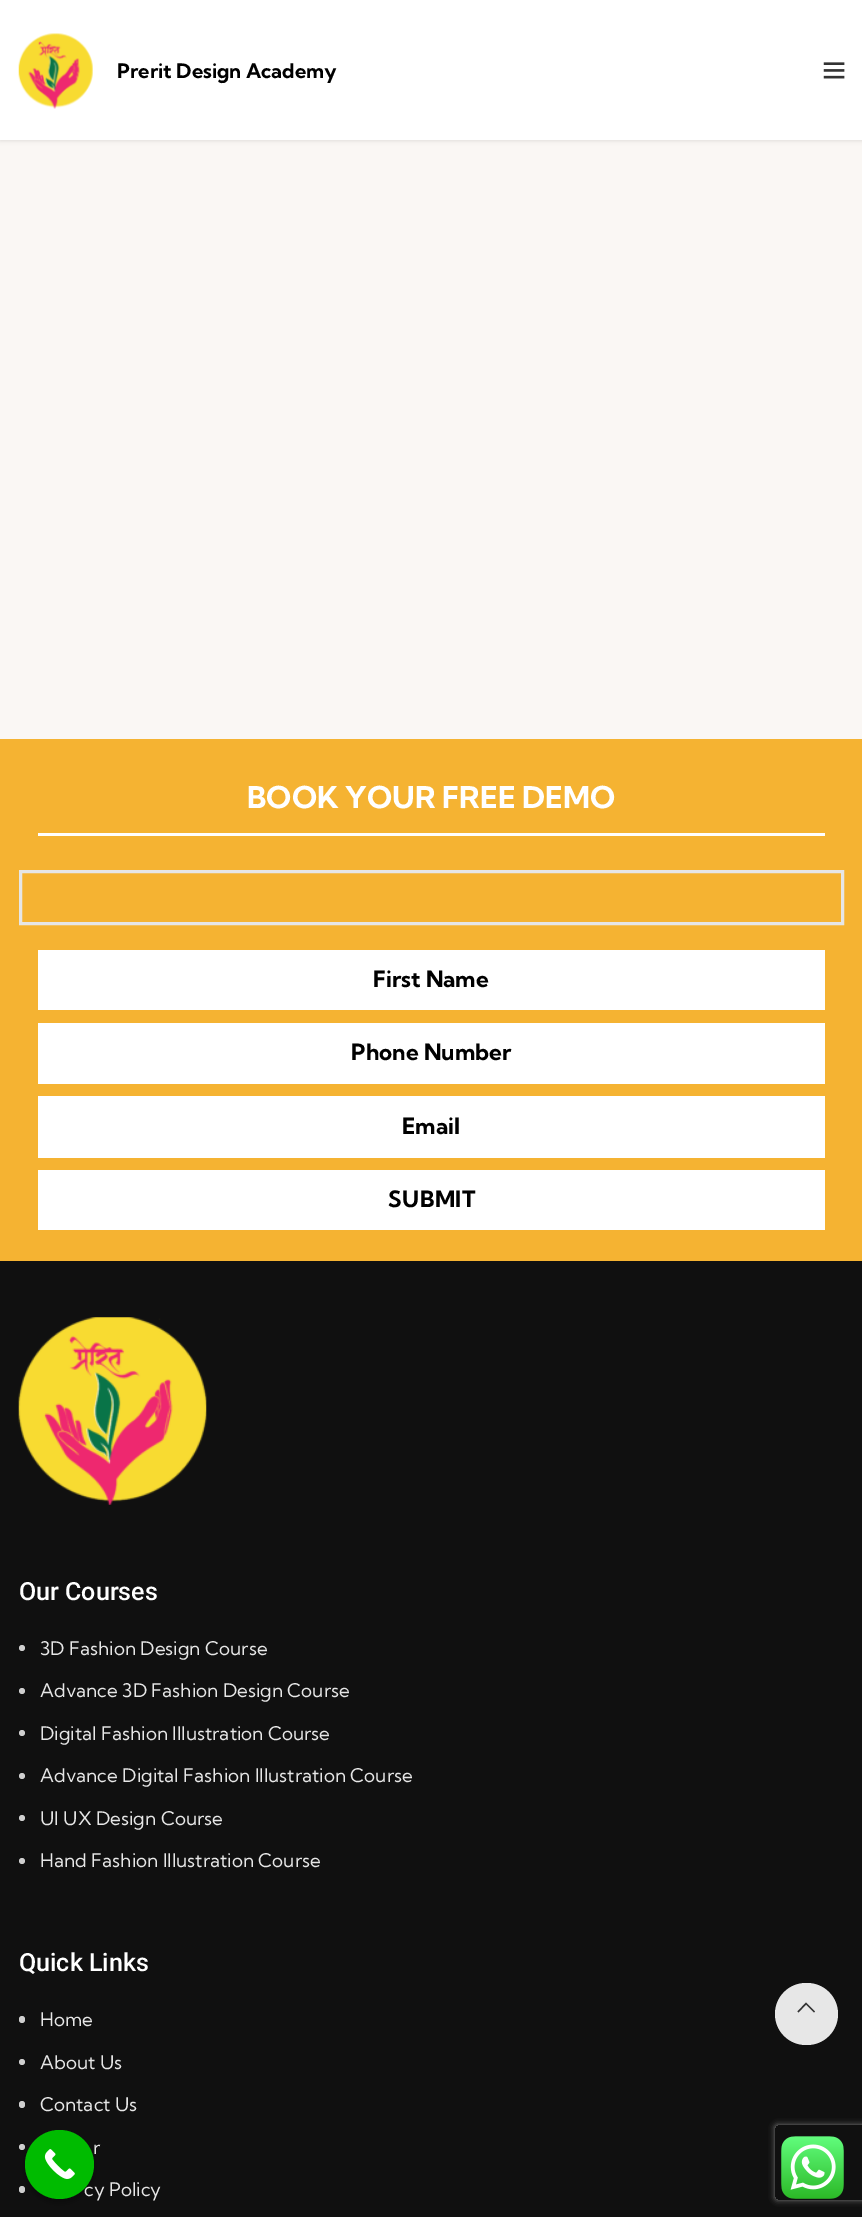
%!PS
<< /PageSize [862 2217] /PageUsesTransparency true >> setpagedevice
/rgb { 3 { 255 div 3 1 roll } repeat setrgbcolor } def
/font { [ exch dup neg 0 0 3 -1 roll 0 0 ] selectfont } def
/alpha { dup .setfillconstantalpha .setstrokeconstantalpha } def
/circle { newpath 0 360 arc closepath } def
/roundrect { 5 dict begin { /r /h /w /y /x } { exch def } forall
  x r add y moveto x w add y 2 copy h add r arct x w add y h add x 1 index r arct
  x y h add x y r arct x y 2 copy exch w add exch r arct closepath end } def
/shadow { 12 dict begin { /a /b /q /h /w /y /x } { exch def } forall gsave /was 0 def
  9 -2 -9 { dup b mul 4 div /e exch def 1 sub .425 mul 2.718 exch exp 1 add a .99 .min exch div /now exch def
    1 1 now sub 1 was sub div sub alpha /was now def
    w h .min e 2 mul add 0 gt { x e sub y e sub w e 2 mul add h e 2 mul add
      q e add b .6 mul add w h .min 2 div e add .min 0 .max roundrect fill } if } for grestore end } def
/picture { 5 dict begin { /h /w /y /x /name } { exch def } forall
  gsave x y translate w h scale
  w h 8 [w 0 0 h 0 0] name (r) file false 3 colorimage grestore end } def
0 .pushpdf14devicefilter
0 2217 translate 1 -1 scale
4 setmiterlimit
250 247 244 rgb
0 0 862 2217 rectfill
0 0 0 rgb
0 1 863 140 0 2 0.1 shadow
255 255 255 rgb
0 0 862 140 rectfill
(img/1.rgb) 18 33 75 76 picture
(img/2.rgb) 823 62 22 17 picture
[
  [0 1261 862 956 16 16 16]
  [0 739 862 522 245 179 50]
  [38 833 787 3 255 255 255]
] { aload pop rgb rectfill } forall
230 230 230 rgb
3 setlinewidth
20.5 871.5 822 52 rectstroke
[
  [38 950 787 60 255 255 255]
  [38 1023 787 61 255 255 255]
  [38 1096 787 62 255 255 255]
  [38 1170 787 60 255 255 255]
] { aload pop rgb rectfill } forall
(img/3.rgb) 18 1317 189 188 picture
207 207 207 rgb
22 1648 3 circle fill
22 1691 3 circle fill
22 1733 3 circle fill
22 1776 3 circle fill
22 1818 3 circle fill
22 1861 3 circle fill
19 2016 6 7 3 roundrect fill
22 2062 3 circle fill
19 2101 6 7 3 roundrect fill
22 2147 3 circle fill
19 2186 6 7 3 roundrect fill
231 231 231 rgb
775 1983 63 62 31 roundrect fill
51 51 51 rgb
806 2002.5 moveto 815 2011.5 lineto 814 2012.5 lineto 806 2004.5 lineto 798.5 2012.5 lineto 797.5 2011.5 lineto closepath fill
0 0 0 rgb
25 2134 69 69 34.5 4 0.3 shadow
gsave
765 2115 moveto 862 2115 lineto 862 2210 lineto 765 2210 lineto closepath 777.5 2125 moveto 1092.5 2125 lineto 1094 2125 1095 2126 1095 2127.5 curveto 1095 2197.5 lineto 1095 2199 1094 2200 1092.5 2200 curveto 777.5 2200 lineto 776 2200 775 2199 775 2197.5 curveto 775 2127.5 lineto 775 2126 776 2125 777.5 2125 curveto closepath eoclip newpath
128 128 128 rgb
775 2125 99 75 2.5 3 1 shadow
grestore
(img/5.rgb) 781 2136 63 63 picture
/KumbhSans-Bold 20 font
117 78 moveto (Prerit Design Academy) show
/KumbhSans-Bold 30 font
255 255 255 rgb
247 808 moveto (BOOK YOUR FREE DEMO) show
/KumbhSans-Bold 22.5 font
0 0 0 rgb
[
  [(First Name) 373 987]
  [(Phone Number) 351 1060]
  [(Email) 402 1134]
] { aload pop moveto show } forall
388 1207 moveto 0.5 0 (SUBMIT) ashow
/Roboto-Medium 25 font
255 255 255 rgb
19 1600 moveto (Our Courses) show
/KumbhSans-Regular 18.75 font
231 231 231 rgb
[
  [(3D Fashion Design Course) 40 1655]
  [(Advance 3D Fashion Design Course) 40 1697]
  [(Digital Fashion Illustration Course) 40 1740]
  [(Advance Digital Fashion Illustration Course) 40 1782]
  [(UI UX Design Course) 40 1825]
  [(Hand Fashion Illustration Course) 40 1867]
] { aload pop moveto show } forall
/Roboto-Medium 25 font
255 255 255 rgb
19 1971 moveto (Quick Links) show
/KumbhSans-Regular 18.75 font
231 231 231 rgb
[
  [(Home) 40 2026]
  [(About Us) 40 2069]
  [(Contact Us) 40 2111]
  [(r) 93 2154]
  [(cy Policy) 84 2196]
] { aload pop moveto show } forall
0 187 0 rgb
59.5 2164.5 34.5 circle fill
(img/4.rgb) 44 2149 31 30 picture
.poppdf14devicefilter showpage
